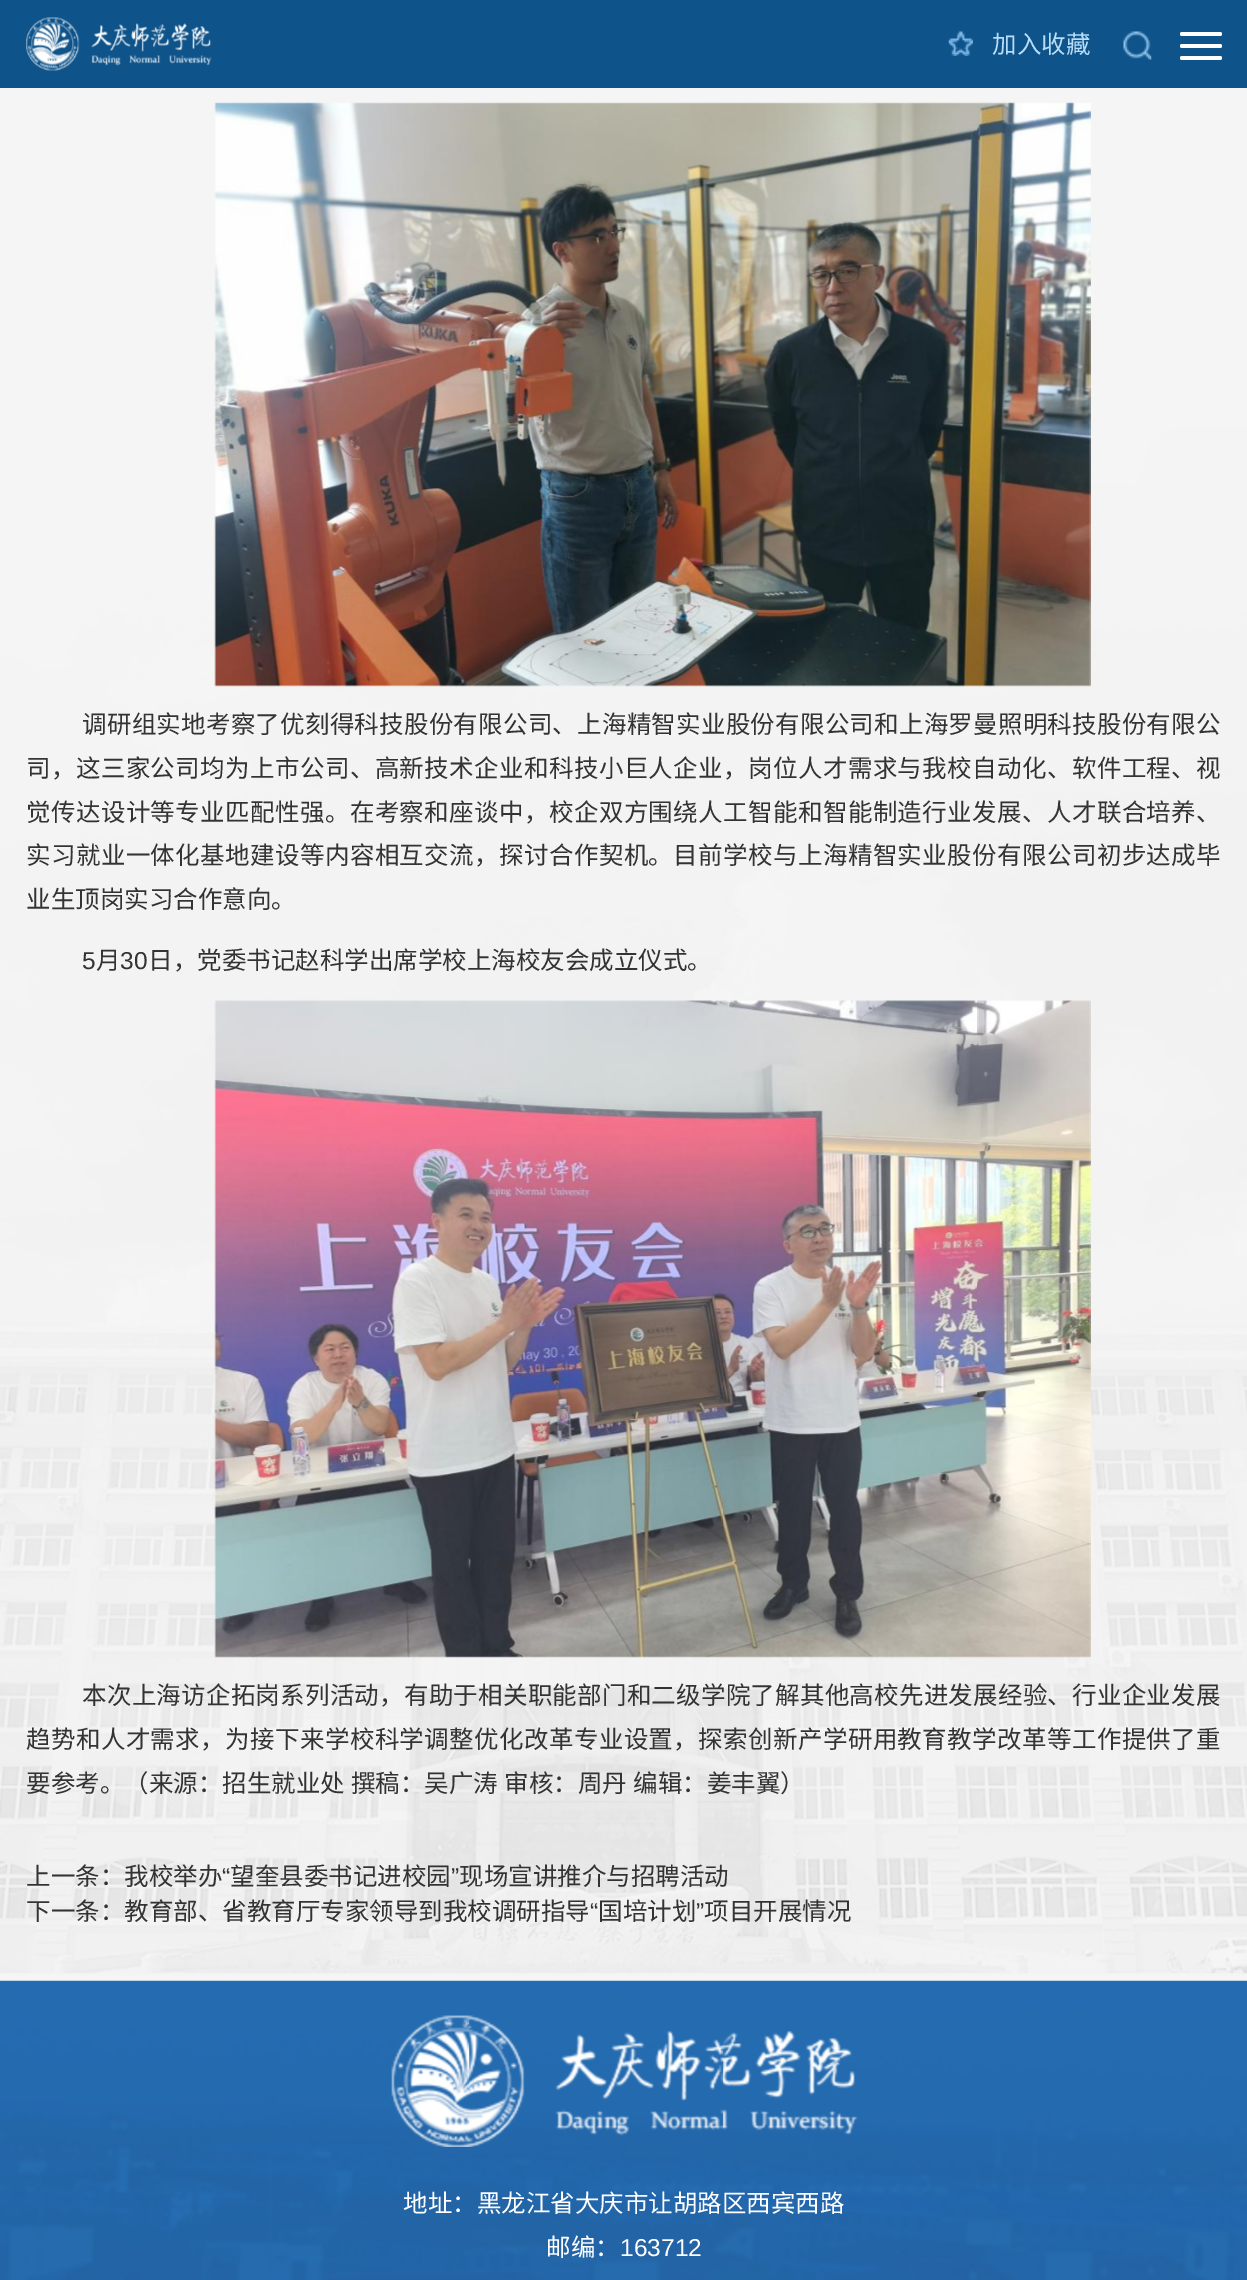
%!PS
<< /PageSize [1247 2280] >> setpagedevice
/rgb { 3 { 255 div 3 1 roll } repeat setrgbcolor } def
/font { [ exch dup neg 0 0 3 -1 roll 0 0 ] selectfont } def
/roundrect { 5 dict begin { /r /h /w /y /x } { exch def } forall
  x r add y moveto x w add y 2 copy h add r arct x w add y h add x 1 index r arct
  x y h add x y r arct x y 2 copy exch w add exch r arct closepath end } def
/picture { 5 dict begin { /h /w /y /x /name } { exch def } forall
  gsave x y translate w h scale
  w h 8 [w 0 0 h 0 0] name (r) file false 3 colorimage grestore end } def
0 2280 translate 1 -1 scale
4 setmiterlimit
255 255 255 rgb
0 0 1247 2280 rectfill
14 83 138 rgb
0 0 1247 88 rectfill
(img/1.rgb) 26 17 186 54 picture
(img/2.rgb) 948 31 25 25 picture
(img/3.rgb) 1123 31 29 29 picture
255 255 255 rgb
1180 32 42 4 2 roundrect fill
1180 44 42 4 2 roundrect fill
1180 56 42 4 2 roundrect fill
(img/4.rgb) 0 88 1247 1893 picture
(img/5.rgb) 214 102 877 585 picture
(img/6.rgb) 214 1000 877 658 picture
(img/7.rgb) 0 1980 1247 300 picture
(img/8.rgb) 391 2015 467 132 picture
/NotoSansCJKSC-Regular 24.5 font
184 221 249 rgb
992 53 moveto (加入收藏) show
51 51 51 rgb
82 733 moveto 0.25 0 (调研组实地考察了优刻得科技股份有限公司、上海精智实业股份有限公司和上海罗曼照明科技股份有限公) ashow
26 777 moveto 0.4 0 (司，这三家公司均为上市公司、高新技术企业和科技小巨人企业，岗位人才需求与我校自动化、软件工程、视) ashow
26 821 moveto 0.4 0 (觉传达设计等专业匹配性强。在考察和座谈中，校企双方围绕人工智能和智能制造行业发展、人才联合培养、) ashow
26 864 moveto 0.4 0 (实习就业一体化基地建设等内容相互交流，探讨合作契机。目前学校与上海精智实业股份有限公司初步达成毕) ashow
26 908 moveto (业生顶岗实习合作意向。) show
/LiberationSans-Regular 24.5 font
82 969 moveto (5) show
/NotoSansCJKSC-Regular 24.5 font
96 969 moveto (月) show
/LiberationSans-Regular 24.5 font
120 969 moveto (30) show
/NotoSansCJKSC-Regular 24.5 font
148 969 moveto (日，党委书记赵科学出席学校上海校友会成立仪式。) show
82 1704 moveto 0.25 0 (本次上海访企拓岗系列活动，有助于相关职能部门和二级学院了解其他高校先进发展经验、行业企业发展) ashow
26 1748 moveto 0.4 0 (趋势和人才需求，为接下来学校科学调整优化改革专业设置，探索创新产学研用教育教学改革等工作提供了重) ashow
26 1792 moveto 1 0 32 (要参考。（来源：招生就业处 撰稿：吴广涛 审核：周丹 编辑：姜丰翼）) widthshow
26 1885 moveto (上一条：我校举办) show
/LiberationSans-Regular 24.5 font
222 1885 moveto (“) show
/NotoSansCJKSC-Regular 24.5 font
230 1885 moveto (望奎县委书记进校园) show
/LiberationSans-Regular 24.5 font
451 1885 moveto (”) show
/NotoSansCJKSC-Regular 24.5 font
459 1885 moveto (现场宣讲推介与招聘活动) show
26 1920 moveto (下一条：教育部、省教育厅专家领导到我校调研指导) show
/LiberationSans-Regular 24.5 font
590 1920 moveto (“) show
/NotoSansCJKSC-Regular 24.5 font
598 1920 moveto (国培计划) show
/LiberationSans-Regular 24.5 font
696 1920 moveto (”) show
/NotoSansCJKSC-Regular 24.5 font
704 1920 moveto (项目开展情况) show
255 255 255 rgb
403 2212 moveto (地址：黑龙江省大庆市让胡路区西宾西路) show
546 2256 moveto (邮编：) show
/LiberationSans-Regular 24.5 font
620 2256 moveto (163712) show
showpage
